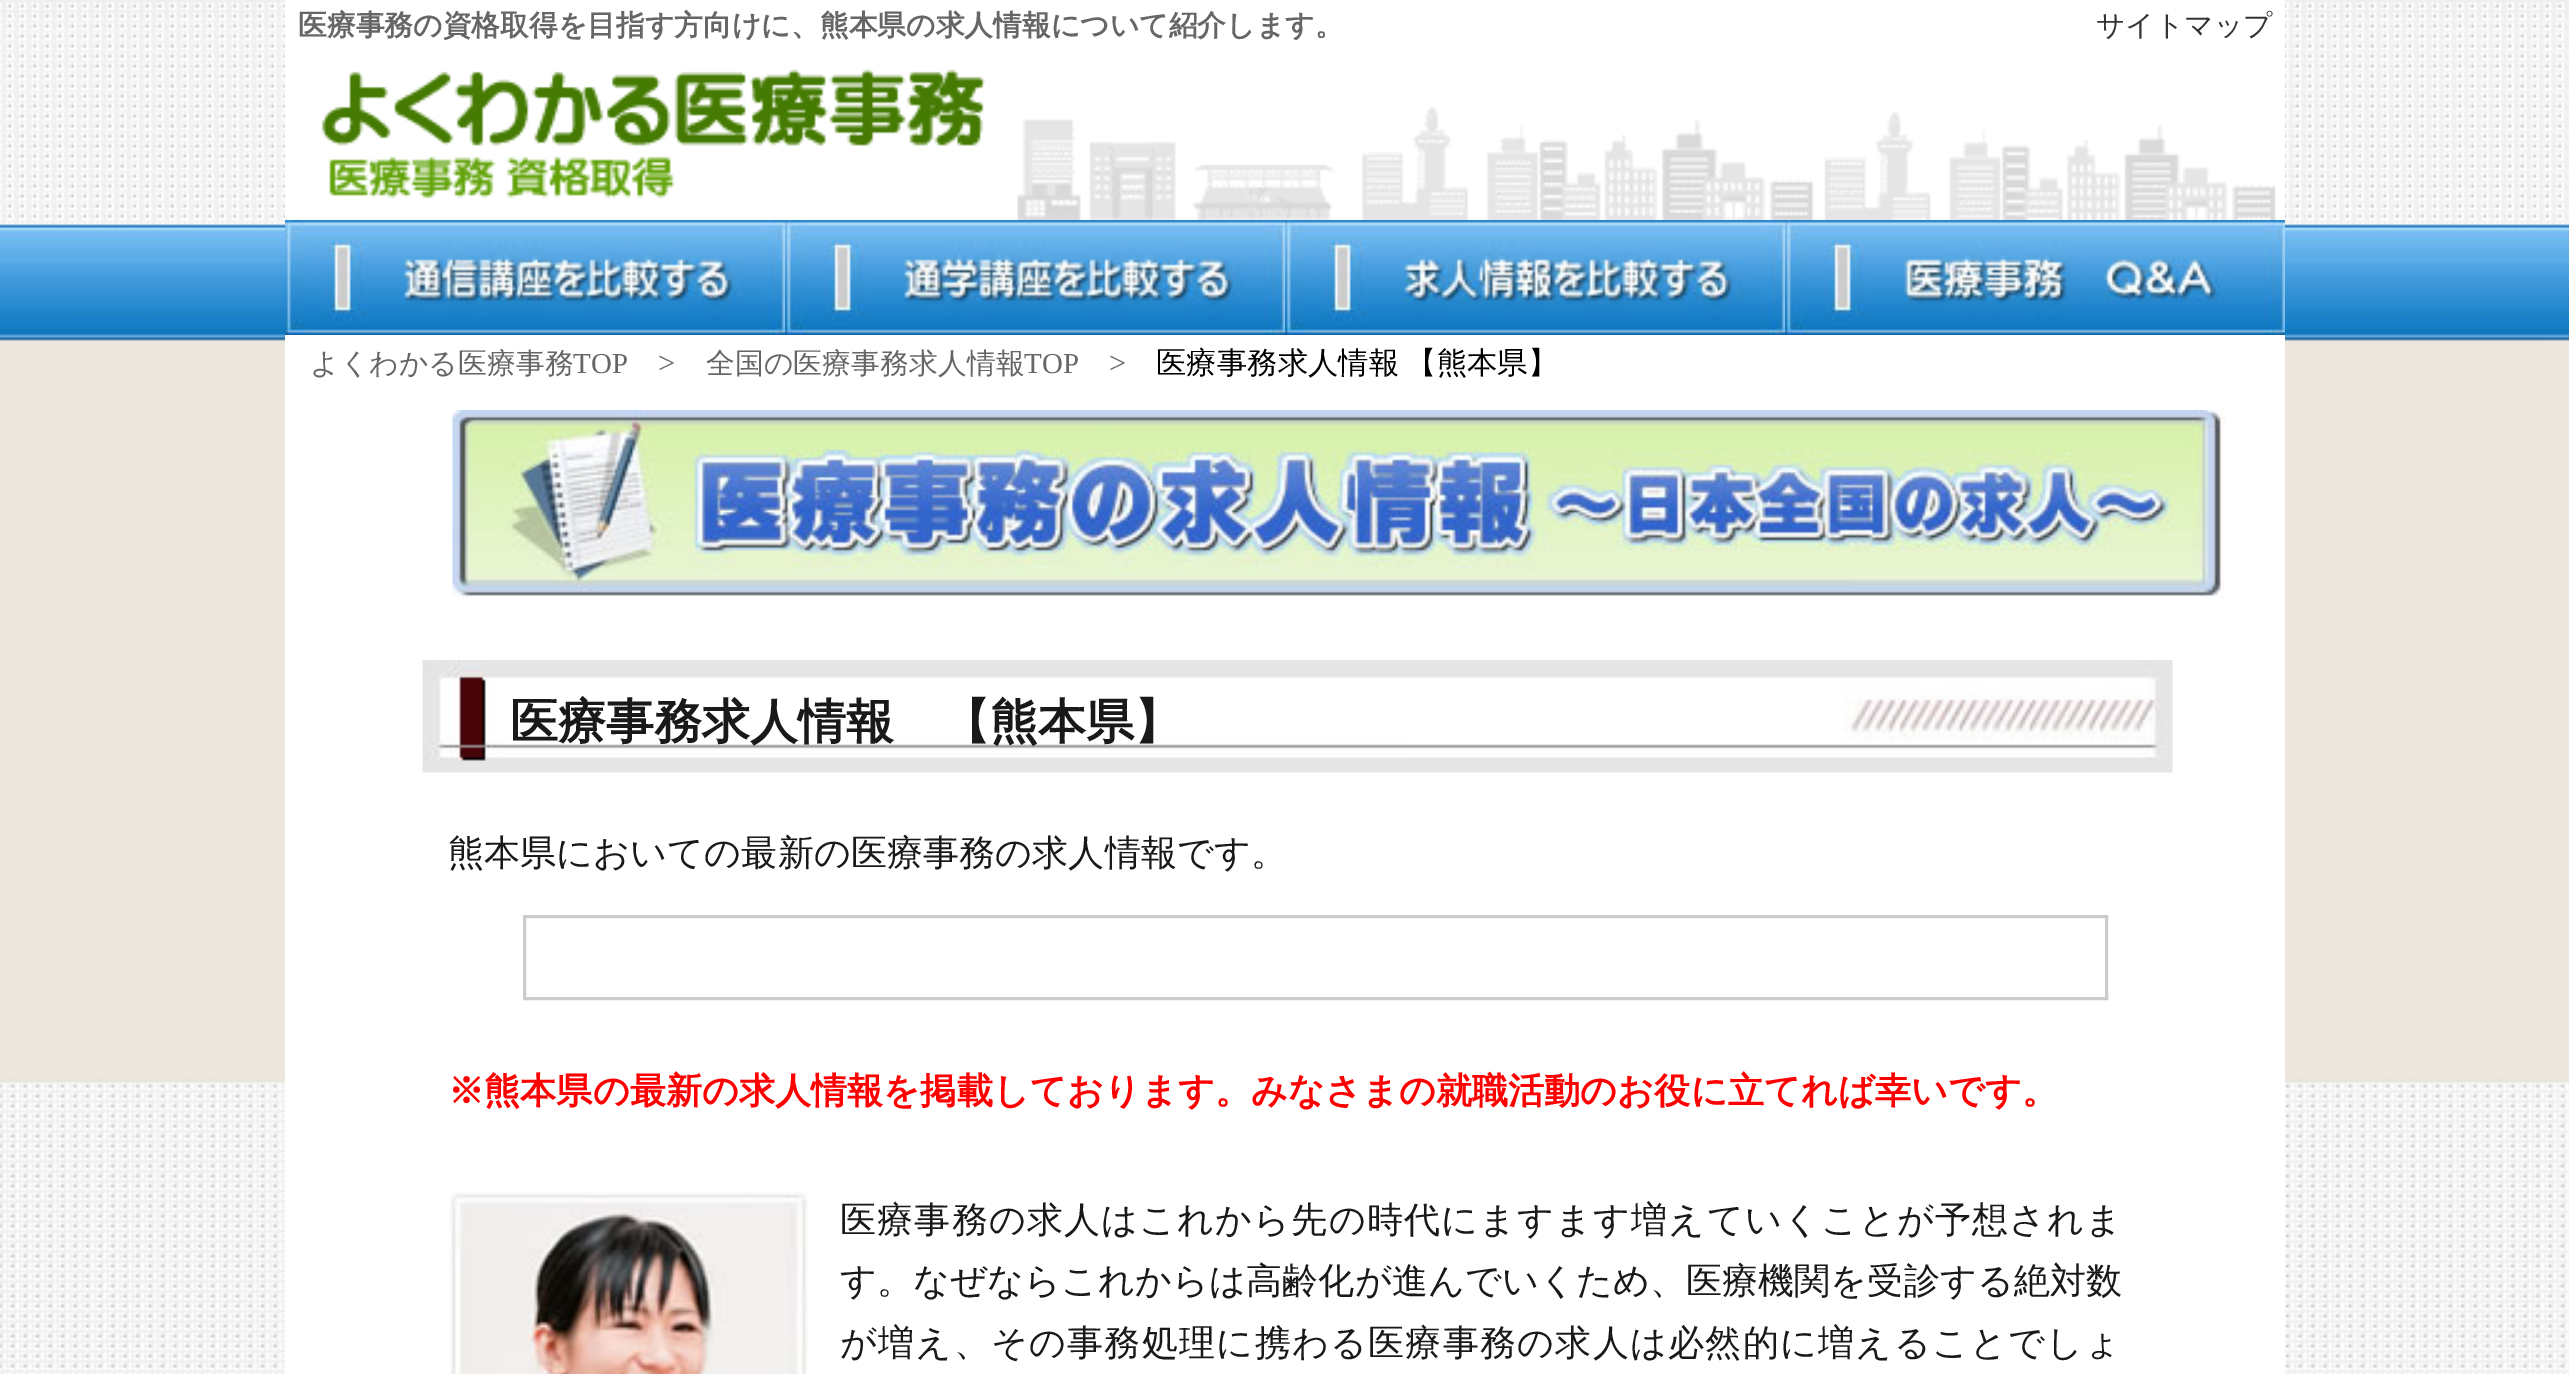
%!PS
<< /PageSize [2569 1374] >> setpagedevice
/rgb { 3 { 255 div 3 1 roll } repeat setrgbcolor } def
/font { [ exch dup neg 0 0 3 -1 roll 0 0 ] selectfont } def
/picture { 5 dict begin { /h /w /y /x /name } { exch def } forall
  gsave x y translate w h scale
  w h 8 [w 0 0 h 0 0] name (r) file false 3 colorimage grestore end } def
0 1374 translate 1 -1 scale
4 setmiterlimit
255 255 255 rgb
0 0 2569 1374 rectfill
(img/1.rgb) 0 0 2569 1374 picture
285 0 2000 1374 rectfill
(img/2.rgb) 321 69 665 130 picture
(img/3.rgb) 1017 49 1259 171 picture
(img/4.rgb) 285 220 500 115 picture
(img/5.rgb) 785 220 500 115 picture
(img/6.rgb) 1285 220 500 115 picture
(img/7.rgb) 1785 220 500 115 picture
(img/8.rgb) 452 410 1773 188 picture
(img/9.rgb) 422 660 1751 113 picture
204 204 204 rgb
3 setlinewidth
524.5 916.5 1582 82 rectstroke
(img/10.rgb) 450 1192 358 182 picture
/WenQuanYiZenHei-Bold 28.8 font
102 102 102 rgb
298 35 moveto (医療事務の資格取得を目指す方向けに、熊本県の求人情報について紹介します。) show
/WenQuanYiZenHei-Medium 28.8 font
51 51 51 rgb
2096 35 moveto (サイトマップ) show
/WenQuanYiZenHei-Medium 28.9 font
102 102 102 rgb
310 373 moveto (よくわかる医療事務) show
/LiberationSerif-Regular 28.9 font
573 373 moveto (TOP) show
/LiberationSerif-Regular 30.4 font
658 373 moveto (>) show
/WenQuanYiZenHei-Medium 28.9 font
706 373 moveto (全国の医療事務求人情報) show
/LiberationSerif-Regular 28.9 font
1024 373 moveto (TOP) show
/LiberationSerif-Regular 30.4 font
1109 373 moveto (>) show
/WenQuanYiZenHei-Medium 30.4 font
0 0 0 rgb
1156 373 moveto -2 0 32 (医療事務求人情報 【熊本県】) widthshow
/WenQuanYiZenHei-Bold 48 font
25 25 25 rgb
510 738 moveto (医療事務求人情報　【熊本県】) show
/WenQuanYiZenHei-Medium 36.15 font
448 865 moveto (熊本県においての最新の医療事務の求人情報です。) show
/WenQuanYiZenHei-Bold 36.15 font
255 0 0 rgb
448 1103 moveto (※熊本県の最新の求人情報を掲載しております。みなさまの就職活動のお役に立てれば幸いです。) show
/WenQuanYiZenHei-Medium 36.15 font
25 25 25 rgb
840 1232 moveto 1.05 0 (医療事務の求人はこれから先の時代にますます増えていくことが予想されま) ashow
840 1293 moveto (す。なぜならこれからは高齢化が進んでいくため、医療機関を受診する絶対数) show
840 1355 moveto 1.15 0 (が増え、その事務処理に携わる医療事務の求人は必然的に増えることでしょ) ashow
showpage
